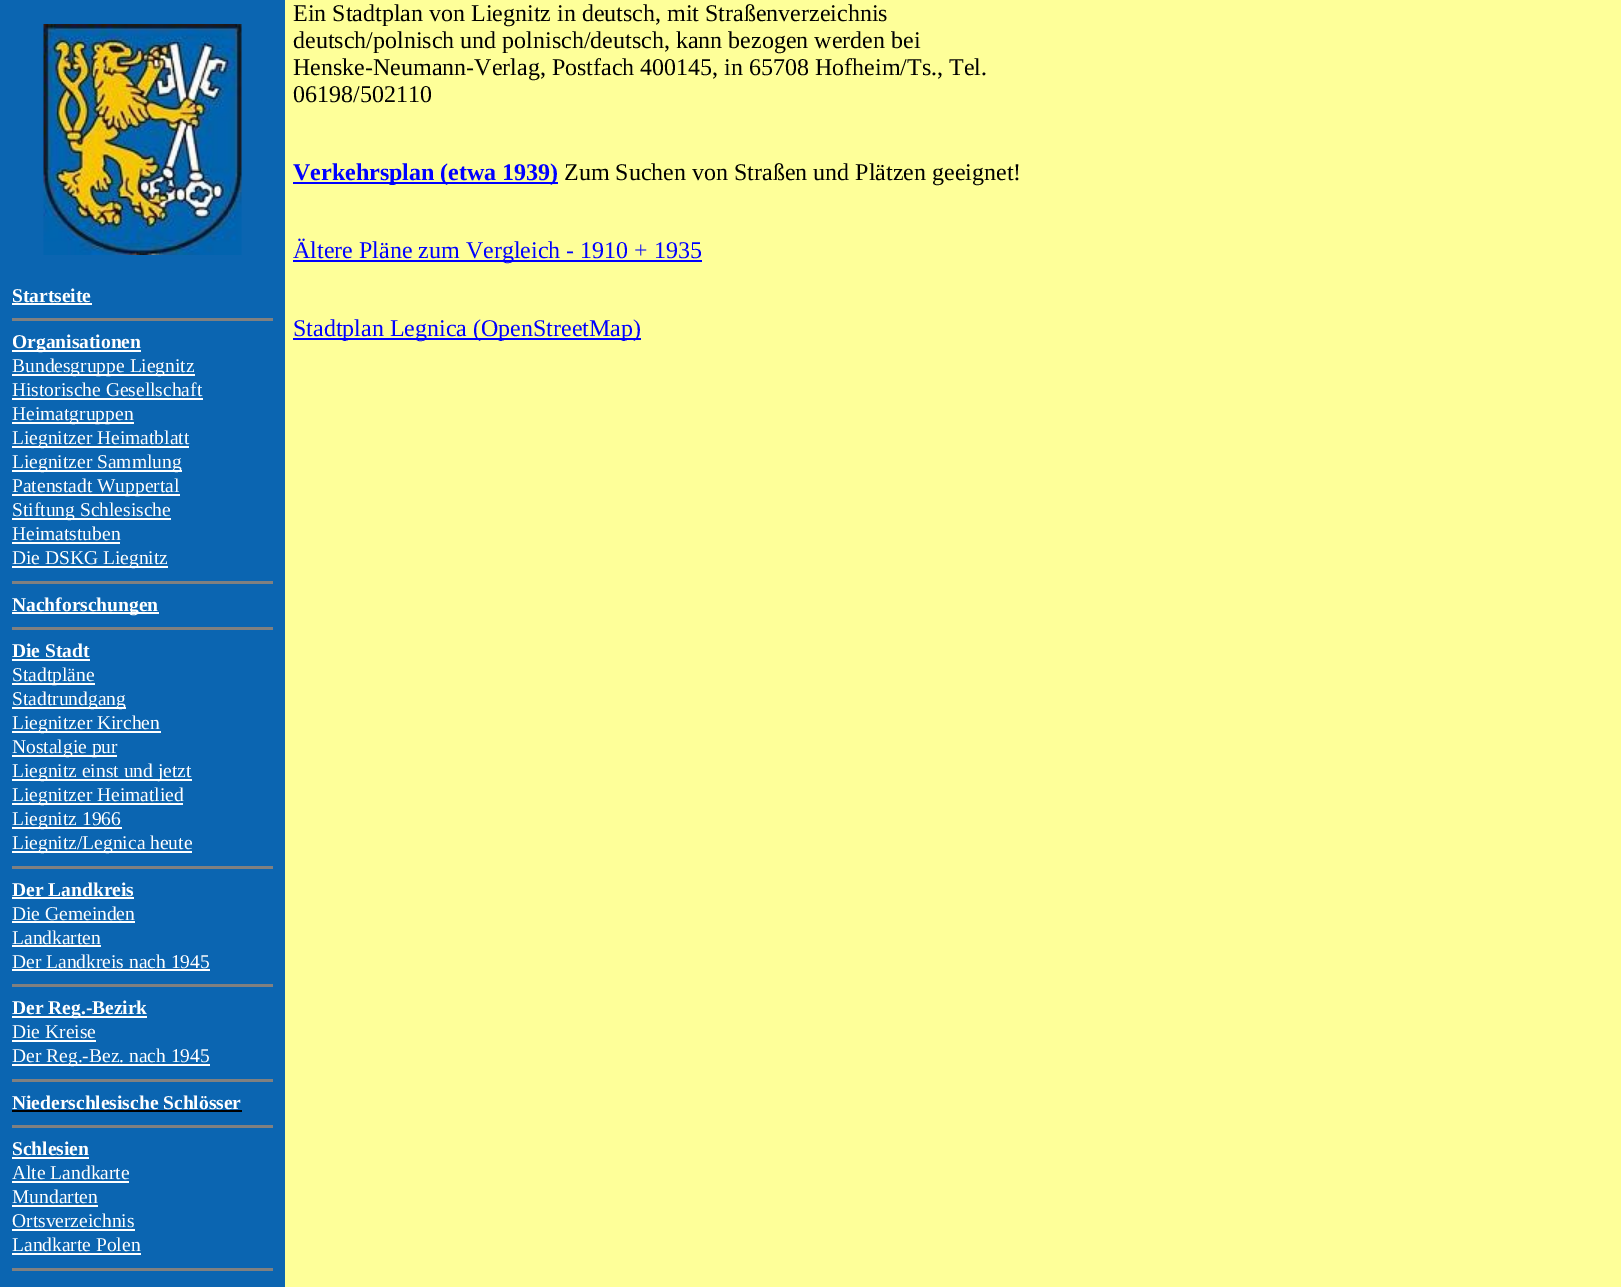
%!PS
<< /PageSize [1621 1287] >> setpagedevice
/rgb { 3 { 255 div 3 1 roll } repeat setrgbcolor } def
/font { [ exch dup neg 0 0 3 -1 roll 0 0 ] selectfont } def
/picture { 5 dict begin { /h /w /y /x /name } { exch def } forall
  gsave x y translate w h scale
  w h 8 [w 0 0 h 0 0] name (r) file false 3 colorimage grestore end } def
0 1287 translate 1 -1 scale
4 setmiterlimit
254 255 153 rgb
0 0 1621 1287 rectfill
[
  [293 182 265 2 0 0 255]
  [293 260 409 2 0 0 255]
  [293 338 348 2 0 0 255]
  [0 0 285 1287 11 101 177]
] { aload pop rgb rectfill } forall
(img/1.rgb) 43 24 199 231 picture
[
  [12 303 80 2 255 255 255]
  [12 318 261 3 128 128 128]
  [12 350 129 2 255 255 255]
  [12 374 183 2 255 255 255]
  [12 398 191 2 255 255 255]
  [12 422 122 2 255 255 255]
  [12 446 177 2 255 255 255]
  [12 470 170 2 255 255 255]
  [12 494 168 2 255 255 255]
  [12 518 159 2 255 255 255]
  [12 542 108 2 255 255 255]
  [12 566 156 2 255 255 255]
  [12 581 261 3 128 128 128]
  [12 612 147 2 255 255 255]
  [12 627 261 3 128 128 128]
  [12 659 78 2 255 255 255]
  [12 683 83 2 255 255 255]
  [12 707 114 2 255 255 255]
  [12 731 149 2 255 255 255]
  [12 755 105 2 255 255 255]
  [12 779 180 2 255 255 255]
  [12 803 171 2 255 255 255]
  [12 827 110 2 255 255 255]
  [12 851 180 2 255 255 255]
  [12 866 261 3 128 128 128]
  [12 897 122 2 255 255 255]
  [12 921 123 2 255 255 255]
  [12 945 89 2 255 255 255]
  [12 969 198 2 255 255 255]
  [12 984 261 3 128 128 128]
  [12 1016 135 2 255 255 255]
  [12 1040 84 2 255 255 255]
  [12 1064 198 2 255 255 255]
  [12 1079 261 3 128 128 128]
  [12 1110 230 2 0 0 0]
  [12 1125 261 3 128 128 128]
  [12 1157 77 2 255 255 255]
  [12 1181 117 2 255 255 255]
  [12 1205 86 2 255 255 255]
  [12 1229 123 2 255 255 255]
  [12 1253 129 2 255 255 255]
  [12 1268 261 3 128 128 128]
] { aload pop rgb rectfill } forall
/LiberationSerif-Regular 24 font
0 0 0 rgb
[
  [(Ein Stadtplan von Liegnitz in deutsch, mit Straßenverzeichnis) 293 21]
  [(deutsch/polnisch und polnisch/deutsch, kann bezogen werden bei) 293 48]
  [(Henske-Neumann-Verlag, Postfach 400145, in 65708 Hofheim/Ts., Tel.) 293 75]
  [(06198/502110) 293 102]
] { aload pop moveto show } forall
/LiberationSerif-Bold 24 font
0 0 255 rgb
293 180 moveto (Verkehrsplan \(etwa 1939\)) show
/LiberationSerif-Regular 24 font
0 0 0 rgb
564 180 moveto (Zum Suchen von Straßen und Plätzen geeignet!) show
0 0 255 rgb
293 258 moveto (Ältere Pläne zum Vergleich - 1910 + 1935) show
293 336 moveto (Stadtplan Legnica \(OpenStreetMap\)) show
/LiberationSerif-Bold 19.5 font
255 255 255 rgb
12 302 moveto (Startseite) show
12 348 moveto (Organisationen) show
/LiberationSerif-Regular 19.5 font
[
  [(Bundesgruppe Liegnitz) 12 372]
  [(Historische Gesellschaft) 12 396]
  [(Heimatgruppen) 12 420]
  [(Liegnitzer Heimatblatt) 12 444]
  [(Liegnitzer Sammlung) 12 468]
  [(Patenstadt Wuppertal) 12 492]
  [(Stiftung Schlesische) 12 516]
  [(Heimatstuben) 12 540]
  [(Die DSKG Liegnitz) 12 564]
] { aload pop moveto show } forall
/LiberationSerif-Bold 19.5 font
12 611 moveto (Nachforschungen) show
12 657 moveto (Die Stadt) show
/LiberationSerif-Regular 19.5 font
[
  [(Stadtpläne) 12 681]
  [(Stadtrundgang) 12 705]
  [(Liegnitzer Kirchen) 12 729]
  [(Nostalgie pur) 12 753]
  [(Liegnitz einst und jetzt) 12 777]
  [(Liegnitzer Heimatlied) 12 801]
  [(Liegnitz 1966) 12 825]
  [(Liegnitz/Legnica heute) 12 849]
] { aload pop moveto show } forall
/LiberationSerif-Bold 19.5 font
12 896 moveto (Der Landkreis) show
/LiberationSerif-Regular 19.5 font
[
  [(Die Gemeinden) 12 920]
  [(Landkarten) 12 944]
  [(Der Landkreis nach 1945) 12 968]
] { aload pop moveto show } forall
/LiberationSerif-Bold 19.5 font
12 1014 moveto (Der Reg.-Bezirk) show
/LiberationSerif-Regular 19.5 font
12 1038 moveto (Die Kreise) show
12 1062 moveto (Der Reg.-Bez. nach 1945) show
/LiberationSerif-Bold 19.5 font
12 1109 moveto (Niederschlesische Schlösser) show
12 1155 moveto (Schlesien) show
/LiberationSerif-Regular 19.5 font
[
  [(Alte Landkarte) 12 1179]
  [(Mundarten) 12 1203]
  [(Ortsverzeichnis) 12 1227]
  [(Landkarte Polen) 12 1251]
] { aload pop moveto show } forall
showpage
